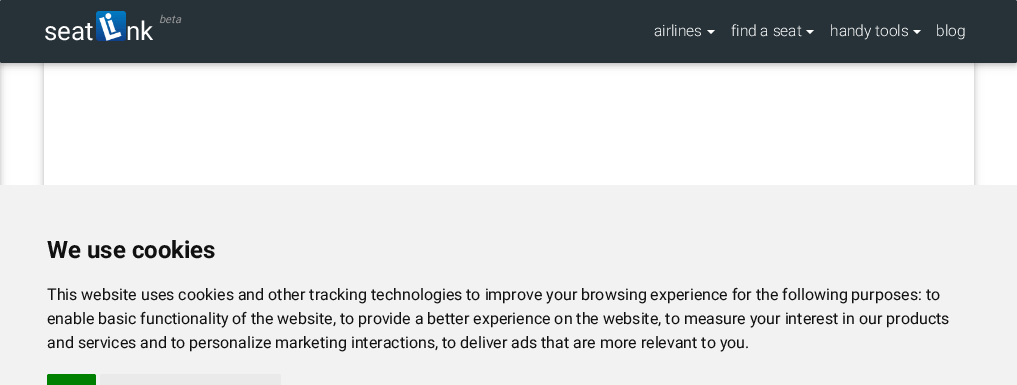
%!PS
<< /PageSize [1017 385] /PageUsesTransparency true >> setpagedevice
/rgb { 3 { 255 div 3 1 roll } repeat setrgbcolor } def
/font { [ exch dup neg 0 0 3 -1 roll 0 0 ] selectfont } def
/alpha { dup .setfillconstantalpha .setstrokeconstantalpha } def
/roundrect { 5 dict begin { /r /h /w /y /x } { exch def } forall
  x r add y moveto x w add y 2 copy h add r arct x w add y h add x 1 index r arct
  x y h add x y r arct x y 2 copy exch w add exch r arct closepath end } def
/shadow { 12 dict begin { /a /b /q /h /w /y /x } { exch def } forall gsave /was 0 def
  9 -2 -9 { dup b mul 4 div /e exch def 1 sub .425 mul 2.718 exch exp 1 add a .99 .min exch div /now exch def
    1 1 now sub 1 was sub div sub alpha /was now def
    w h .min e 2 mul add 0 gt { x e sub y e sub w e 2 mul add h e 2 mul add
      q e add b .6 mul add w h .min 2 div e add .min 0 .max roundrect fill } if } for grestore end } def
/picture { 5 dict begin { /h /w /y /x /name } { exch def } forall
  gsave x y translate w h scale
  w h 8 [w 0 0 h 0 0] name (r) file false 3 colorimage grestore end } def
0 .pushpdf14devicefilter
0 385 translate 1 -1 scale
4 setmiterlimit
255 255 255 rgb
0 0 1017 385 rectfill
0 0 0 rgb
-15 2 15 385 0 5 0.12 shadow
-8 2 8 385 0 2.5 0.16 shadow
44 36 930 318 2 5 0.12 shadow
44 36 930 318 2 2.5 0.16 shadow
255 255 255 rgb
44 63 930 122 rectfill
0 0 0 rgb
0 2 1017 63 2 5 0.12 shadow
0 2 1017 63 2 2.5 0.16 shadow
38 50 56 rgb
0 0 1017 63 2 roundrect fill
(img/1.rgb) 96 11 30 30 picture
255 255 255 rgb
707 30 moveto 715 30 lineto 711 34 lineto closepath fill
806 30 moveto 814 30 lineto 810 34 lineto closepath fill
913 30 moveto 921 30 lineto 917 34 lineto closepath fill
242 242 242 rgb
0 185 1017 200 rectfill
0 128 0 rgb
49 374 moveto 94 374 lineto 95 374 96 375 96 376 curveto 96 385 lineto 47 385 lineto 47 376 lineto 47 375 48 374 49 374 curveto closepath fill
234 234 234 rgb
102 374 moveto 279 374 lineto 280 374 281 375 281 376 curveto 281 385 lineto 100 385 lineto 100 376 lineto 100 375 101 374 102 374 curveto closepath fill
/Roboto-Italic 11 font
153 153 153 rgb
159 23 moveto (beta) show
/Roboto-Regular 26 font
255 255 255 rgb
44 40 moveto (seat) show
126 40 moveto (nk) show
/Roboto-Light 15.5 font
[
  [(airlines) 654 36]
  [(find a seat) 731 36]
  [(handy tools) 830 36]
  [(blog) 936 36]
] { aload pop moveto show } forall
/Roboto-Bold 24 font
17 17 17 rgb
47 258 moveto (We use cookies) show
/Roboto-Regular 16 font
[
  [(This website uses cookies and other tracking technologies to improve your browsing experience for the following purposes: to) 47 300]
  [(enable basic functionality of the website, to provide a better experience on the website, to measure your interest in our products) 47 324]
  [(and services and to personalize marketing interactions, to deliver ads that are more relevant to you.) 47 348]
] { aload pop moveto show } forall
.poppdf14devicefilter showpage
